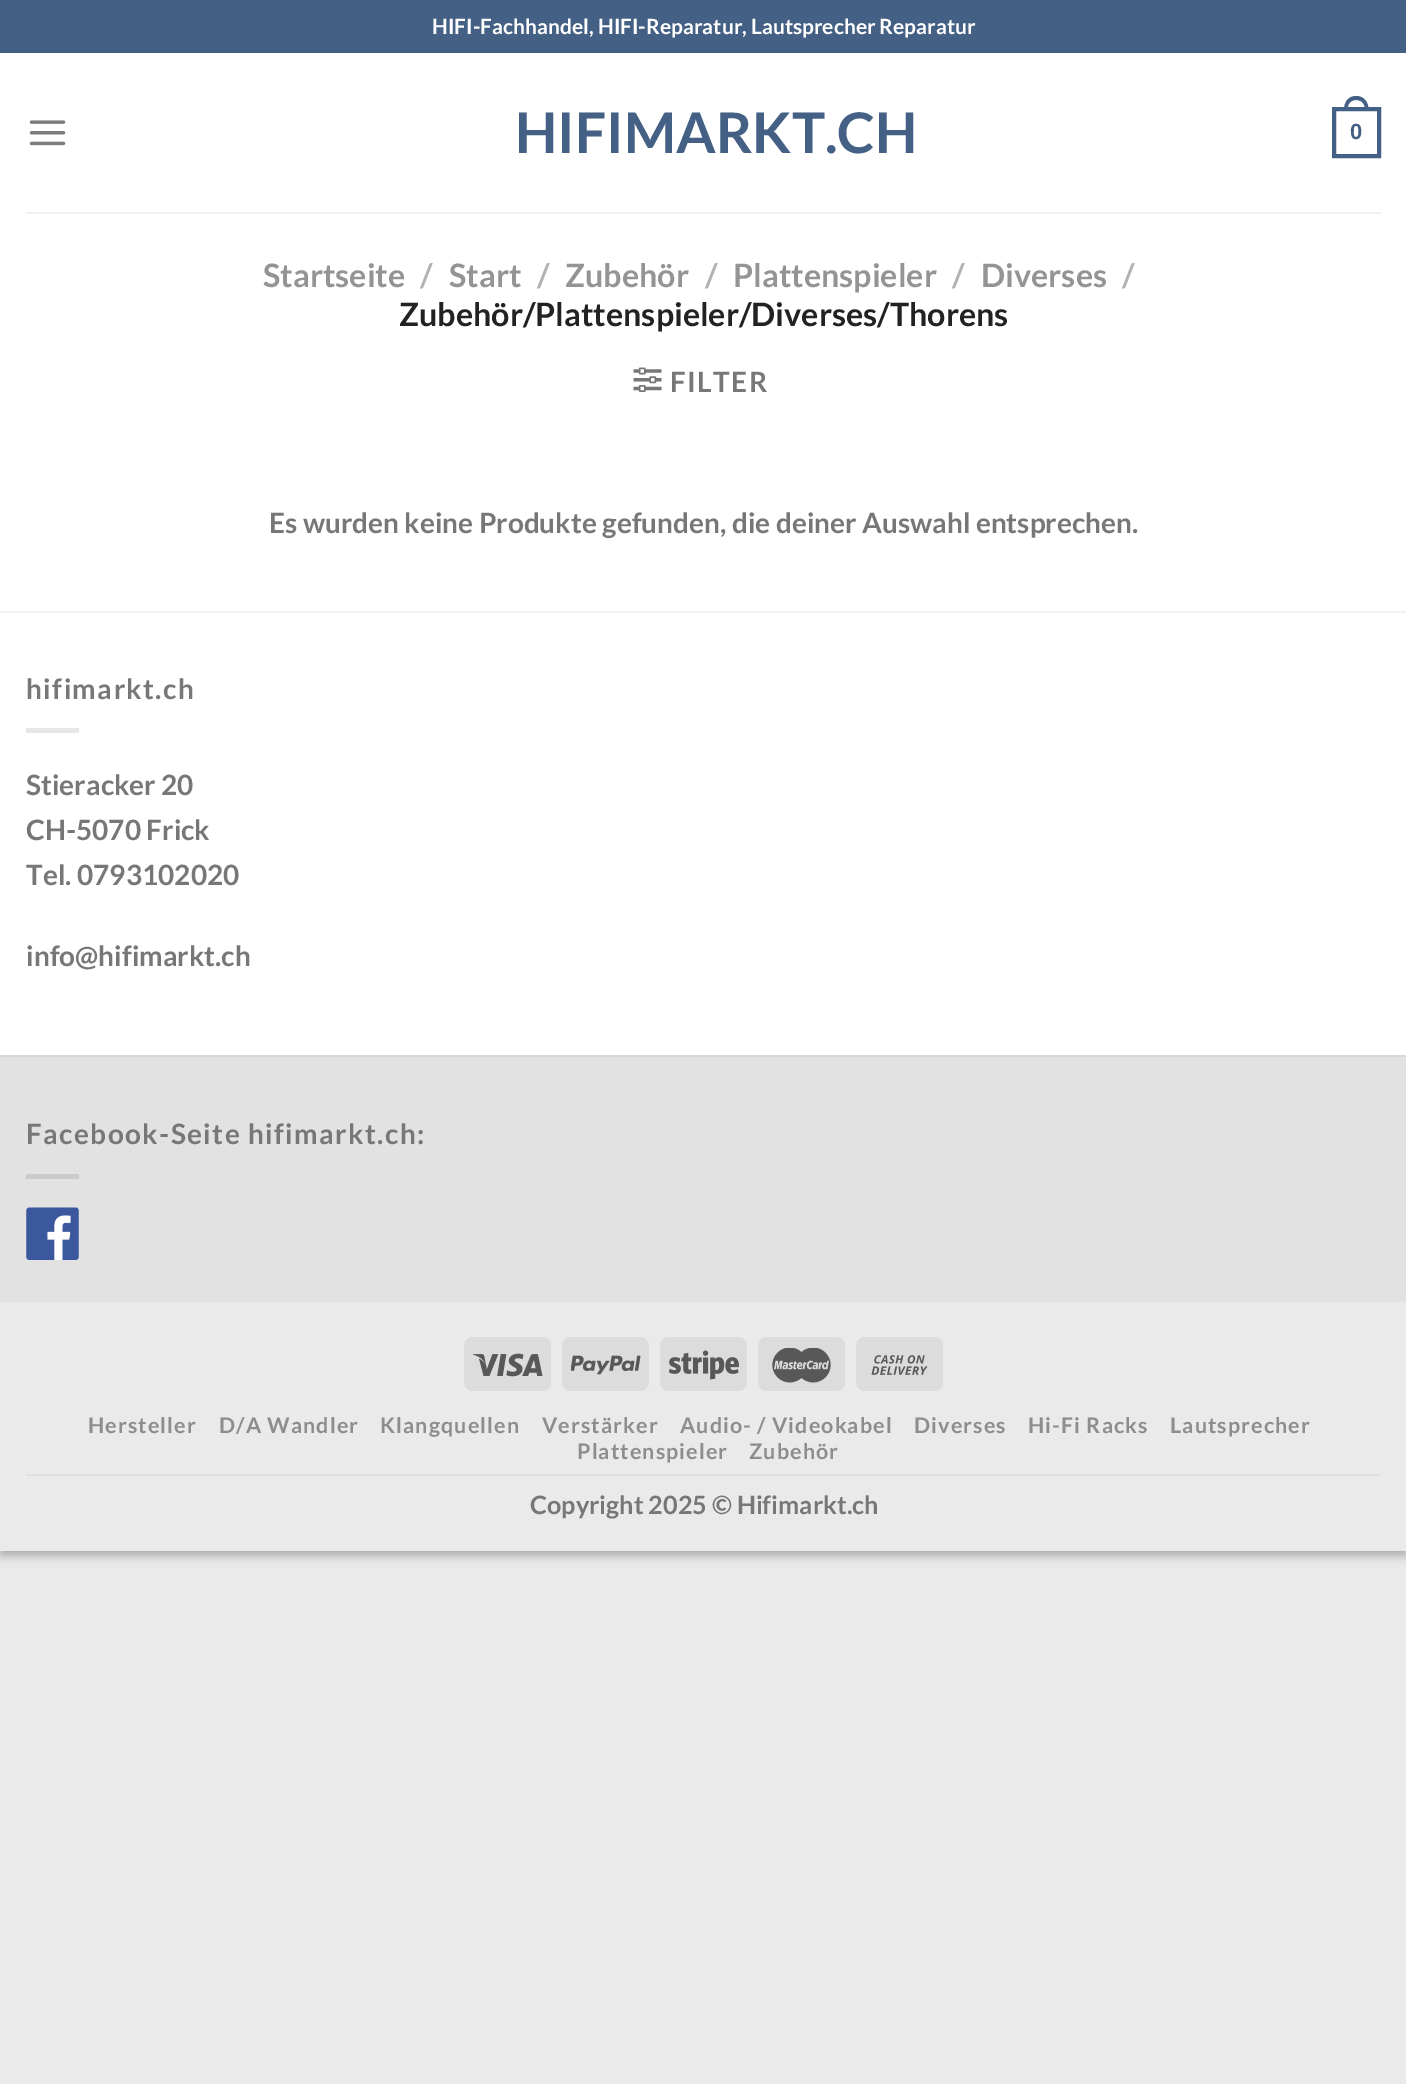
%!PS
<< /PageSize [1406 2084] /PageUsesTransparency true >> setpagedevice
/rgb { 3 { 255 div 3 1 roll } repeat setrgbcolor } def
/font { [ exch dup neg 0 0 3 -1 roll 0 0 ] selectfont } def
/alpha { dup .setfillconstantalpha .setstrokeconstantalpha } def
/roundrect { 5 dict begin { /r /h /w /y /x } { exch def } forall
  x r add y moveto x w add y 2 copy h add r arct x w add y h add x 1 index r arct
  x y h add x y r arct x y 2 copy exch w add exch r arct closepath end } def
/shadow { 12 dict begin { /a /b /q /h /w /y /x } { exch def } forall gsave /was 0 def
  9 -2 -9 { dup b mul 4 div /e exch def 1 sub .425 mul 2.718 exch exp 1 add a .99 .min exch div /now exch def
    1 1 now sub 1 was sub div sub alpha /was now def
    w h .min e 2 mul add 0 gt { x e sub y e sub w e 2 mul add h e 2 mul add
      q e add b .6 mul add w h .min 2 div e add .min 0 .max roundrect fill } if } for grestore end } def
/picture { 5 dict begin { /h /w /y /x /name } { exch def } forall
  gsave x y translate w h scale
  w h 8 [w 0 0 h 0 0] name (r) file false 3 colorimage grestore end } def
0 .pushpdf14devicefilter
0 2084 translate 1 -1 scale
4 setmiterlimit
234 234 234 rgb
0 0 1406 2084 rectfill
0 0 0 rgb
0 5 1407 1551 0 5 0.23 shadow
7 12 1393 1537 0 5 0.16 shadow
255 255 255 rgb
0 53 1406 1002 rectfill
68 96 132 rgb
0 0 1406 53 rectfill
(img/1.rgb) 29 120 37 26 picture
4 setlinewidth
1334 109 45 47 rectstroke
1356 96 moveto 1364.5 96 1368.5 102.5 1368.5 110 curveto 1344 110 lineto 1344 102.5 1348 96 1356 96 curveto closepath 1356 100 moveto 1362.5 100 1365 104.5 1365 110 curveto 1347.5 110 lineto 1347.5 104.5 1350 100 1356 100 curveto closepath eofill
241 241 241 rgb
26 212 1355 2 rectfill
(img/2.rgb) 633 367 29 25 picture
[
  [0 611 1406 2 242 242 242]
  [26 728 53 5 230 230 230]
  [0 1057 1406 245 226 226 226]
  [0 1055 1406 2 215 215 215]
  [26 1174 53 5 203 203 203]
] { aload pop rgb rectfill } forall
(img/3.rgb) 26 1207 53 53 picture
234 234 234 rgb
0 1302 1406 249 rectfill
220 220 220 rgb
464 1337 87 54 9 roundrect fill
(img/4.rgb) 473 1353 70 24 picture
562 1337 87 54 9 roundrect fill
(img/5.rgb) 571 1355 70 20 picture
660 1337 87 54 9 roundrect fill
(img/6.rgb) 669 1350 70 30 picture
758 1337 87 54 9 roundrect fill
(img/7.rgb) 772 1348 59 35 picture
856 1337 87 54 9 roundrect fill
(img/8.rgb) 871 1355 57 20 picture
224 224 224 rgb
26 1474 1355 2 rectfill
/Lato-Bold 21 font
255 255 255 rgb
432 34 moveto (HIFI-Fachhandel, HIFI-Reparatur, Lautsprecher Reparatur) show
/Lato-Bold 56 font
68 96 132 rgb
515 153 moveto (HIFIMARKT.CH) show
/LiberationSans-Bold 22 font
1350 139 moveto (0) show
/Lato-Bold 32.25 font
148 148 148 rgb
263 287 moveto (Startseite) show
178 178 178 rgb
420 287 moveto (/) show
148 148 148 rgb
449 287 moveto (Start) show
178 178 178 rgb
537 287 moveto (/) show
148 148 148 rgb
565 287 moveto (Zubehör) show
178 178 178 rgb
705 287 moveto (/) show
148 148 148 rgb
733 287 moveto (Plattenspieler) show
178 178 178 rgb
952 287 moveto (/) show
148 148 148 rgb
981 287 moveto (Diverses) show
178 178 178 rgb
1122 287 moveto (/) show
34 34 34 rgb
399 326 moveto (Zubehör/Plattenspieler/Diverses/Thorens) show
/Lato-Bold 28 font
119 119 119 rgb
670 392 moveto 1.4 0 (FILTER) ashow
269 533 moveto (Es wurden keine Produkte gefunden, die deiner Auswahl entsprechen.) show
26 699 moveto 1.4 0 (hifimarkt.ch) ashow
[
  [(Stieracker 20) 26 795]
  [(CH-5070 Frick) 26 840]
  [(Tel. 0793102020) 26 885]
  [(info@hifimarkt.ch) 26 966]
] { aload pop moveto show } forall
26 1144 moveto 1.4 0 (Facebook-Seite hifimarkt.ch:) ashow
/Lato-Bold 21.5 font
141 141 141 rgb
88 1433 moveto 1.1 0 (Hersteller) ashow
219 1433 moveto 1.1 0 (D/A Wandler) ashow
380 1433 moveto 1.1 0 (Klangquellen) ashow
542 1433 moveto 1.1 0 (Verstärker) ashow
680 1433 moveto 1.1 0 (Audio- / Videokabel) ashow
914 1433 moveto 1.1 0 (Diverses) ashow
1028 1433 moveto 1.1 0 (Hi-Fi Racks) ashow
1170 1433 moveto 1.1 0 (Lautsprecher) ashow
577 1459 moveto 1.1 0 (Plattenspieler) ashow
749 1459 moveto 1.1 0 (Zubehör) ashow
/Lato-Bold 25.25 font
119 119 119 rgb
530 1514 moveto (Copyright 2025 © Hifimarkt.ch) show
.poppdf14devicefilter showpage
